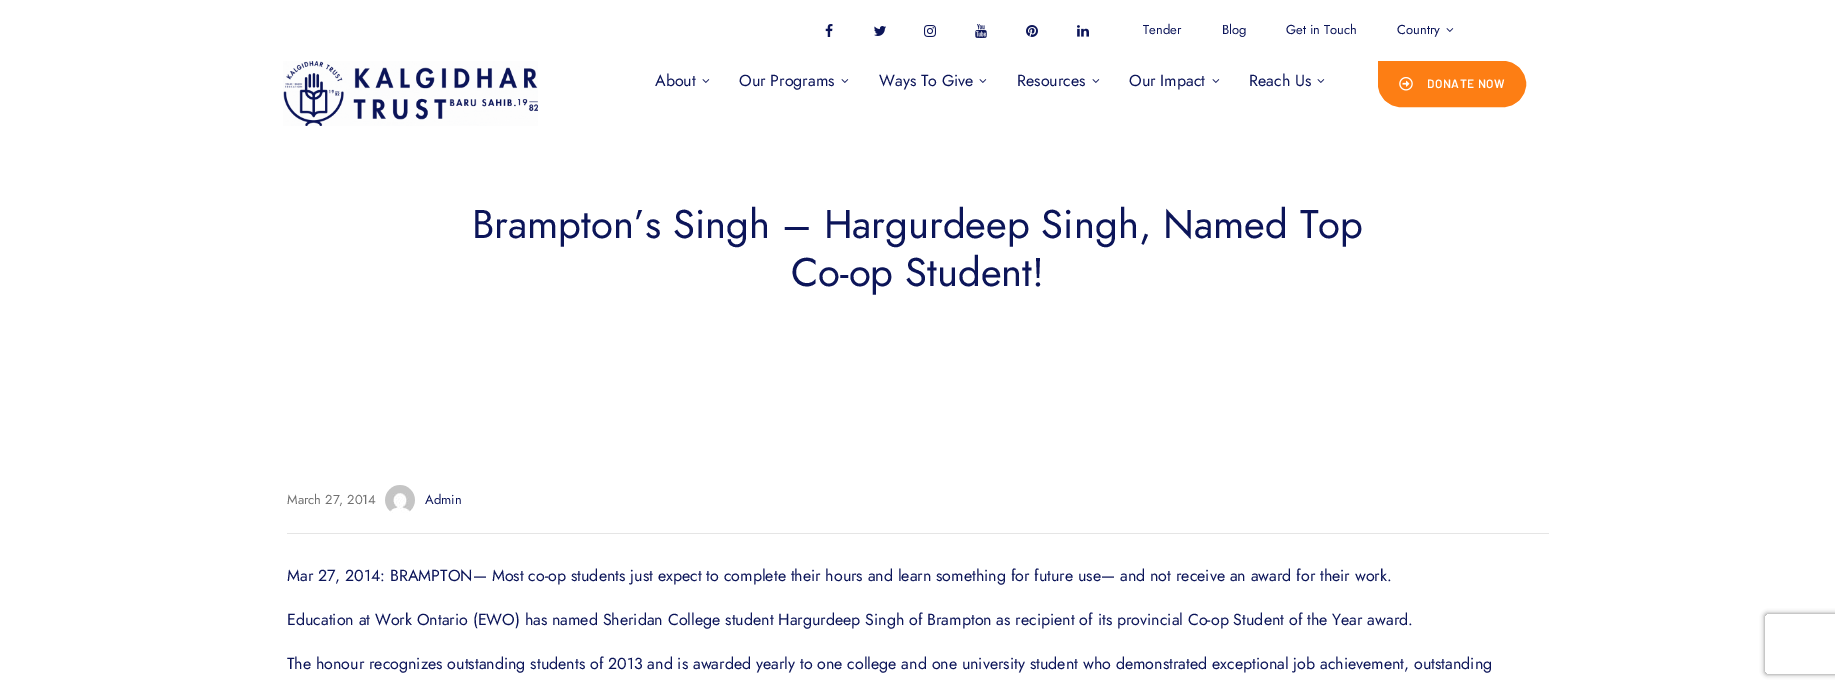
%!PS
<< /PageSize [1835 688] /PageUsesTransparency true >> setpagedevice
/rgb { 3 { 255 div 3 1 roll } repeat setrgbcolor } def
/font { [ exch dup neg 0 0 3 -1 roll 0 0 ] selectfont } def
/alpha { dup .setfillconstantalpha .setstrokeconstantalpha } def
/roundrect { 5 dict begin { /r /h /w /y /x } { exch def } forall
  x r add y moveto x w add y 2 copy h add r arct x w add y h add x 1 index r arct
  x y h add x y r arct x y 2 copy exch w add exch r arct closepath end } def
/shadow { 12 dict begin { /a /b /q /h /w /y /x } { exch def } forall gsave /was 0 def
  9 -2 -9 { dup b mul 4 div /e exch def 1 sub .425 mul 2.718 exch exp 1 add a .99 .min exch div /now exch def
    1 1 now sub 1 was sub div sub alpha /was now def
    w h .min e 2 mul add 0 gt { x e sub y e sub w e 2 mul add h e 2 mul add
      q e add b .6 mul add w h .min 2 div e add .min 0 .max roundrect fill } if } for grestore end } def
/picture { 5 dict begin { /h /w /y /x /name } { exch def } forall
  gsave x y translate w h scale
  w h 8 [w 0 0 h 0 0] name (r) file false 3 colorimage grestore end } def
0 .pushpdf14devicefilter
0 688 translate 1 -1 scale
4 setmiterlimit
255 255 255 rgb
0 0 1835 688 rectfill
(img/1.rgb) 825 24 8 13 picture
(img/2.rgb) 874 26 12 10 picture
(img/3.rgb) 924 25 12 12 picture
(img/4.rgb) 975 24 12 14 picture
(img/5.rgb) 1026 25 12 12 picture
(img/6.rgb) 1077 25 12 12 picture
(img/7.rgb) 1446 28 8 4 picture
(img/8.rgb) 283 61 255 65 picture
(img/7.rgb) 702 79 8 4 picture
(img/7.rgb) 841 79 8 4 picture
(img/7.rgb) 979 79 8 4 picture
(img/7.rgb) 1092 79 8 4 picture
(img/7.rgb) 1212 79 8 4 picture
(img/7.rgb) 1317 79 8 4 picture
253 126 20 rgb
1378.5 61.5 moveto 1503 61.5 lineto 1515.5 61.5 1525.5 71.5 1525.5 84 curveto 1525.5 96.5 1515.5 106.5 1503 106.5 curveto 1401 106.5 lineto 1388.5 106.5 1378.5 96.5 1378.5 84 curveto closepath gsave fill grestore
stroke
(img/9.rgb) 1399 77 14 14 picture
229 229 229 rgb
287 533 1262 1 rectfill
(img/10.rgb) 385 485 30 28 picture
gsave
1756 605 moveto 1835 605 lineto 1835 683 lineto 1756 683 lineto closepath 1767 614 moveto 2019 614 lineto 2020 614 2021 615 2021 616 curveto 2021 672 lineto 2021 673 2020 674 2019 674 curveto 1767 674 lineto 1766 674 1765 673 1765 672 curveto 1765 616 lineto 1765 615 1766 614 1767 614 curveto closepath eoclip newpath
128 128 128 rgb
1765 614 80 60 2 2.5 1 shadow
grestore
/Jost-Regular 13 font
12 21 89 rgb
[
  [(Tender) 1143 34]
  [(Blog) 1222 34]
  [(Get in Touch) 1286 34]
  [(Country) 1397 34]
] { aload pop moveto show } forall
/Jost-Regular 16 font
[
  [(About) 655 86]
  [(Our Programs) 739 86]
  [(Ways To Give) 879 86]
  [(Resources) 1017 86]
  [(Our Impact) 1129 86]
  [(Reach Us) 1249 86]
] { aload pop moveto show } forall
/Barlow-SemiBold 12 font
255 255 255 rgb
1427 88 moveto 0.5 0 (DONATE NOW) ashow
/Jost-Regular 40 font
12 21 89 rgb
472 238 moveto (Brampton’s Singh – Hargurdeep Singh, Named Top) show
791 286 moveto (Co-op Student!) show
/Jost-Regular 13 font
112 112 112 rgb
287 504 moveto (March 27, 2014) show
12 21 89 rgb
425 504 moveto (Admin) show
/Jost-Regular 16 font
[
  [(Mar 27, 2014: BRAMPTON— Most co-op students just expect to complete their hours and learn something for future use— and not receive an award for their work.) 287 581]
  [(Education at Work Ontario \(EWO\) has named Sheridan College student Hargurdeep Singh of Brampton as recipient of its provincial Co-op Student of the Year award.) 287 625]
  [(The honour recognizes outstanding students of 2013 and is awarded yearly to one college and one university student who demonstrated exceptional job achievement, outstanding) 287 669]
] { aload pop moveto show } forall
.poppdf14devicefilter showpage
